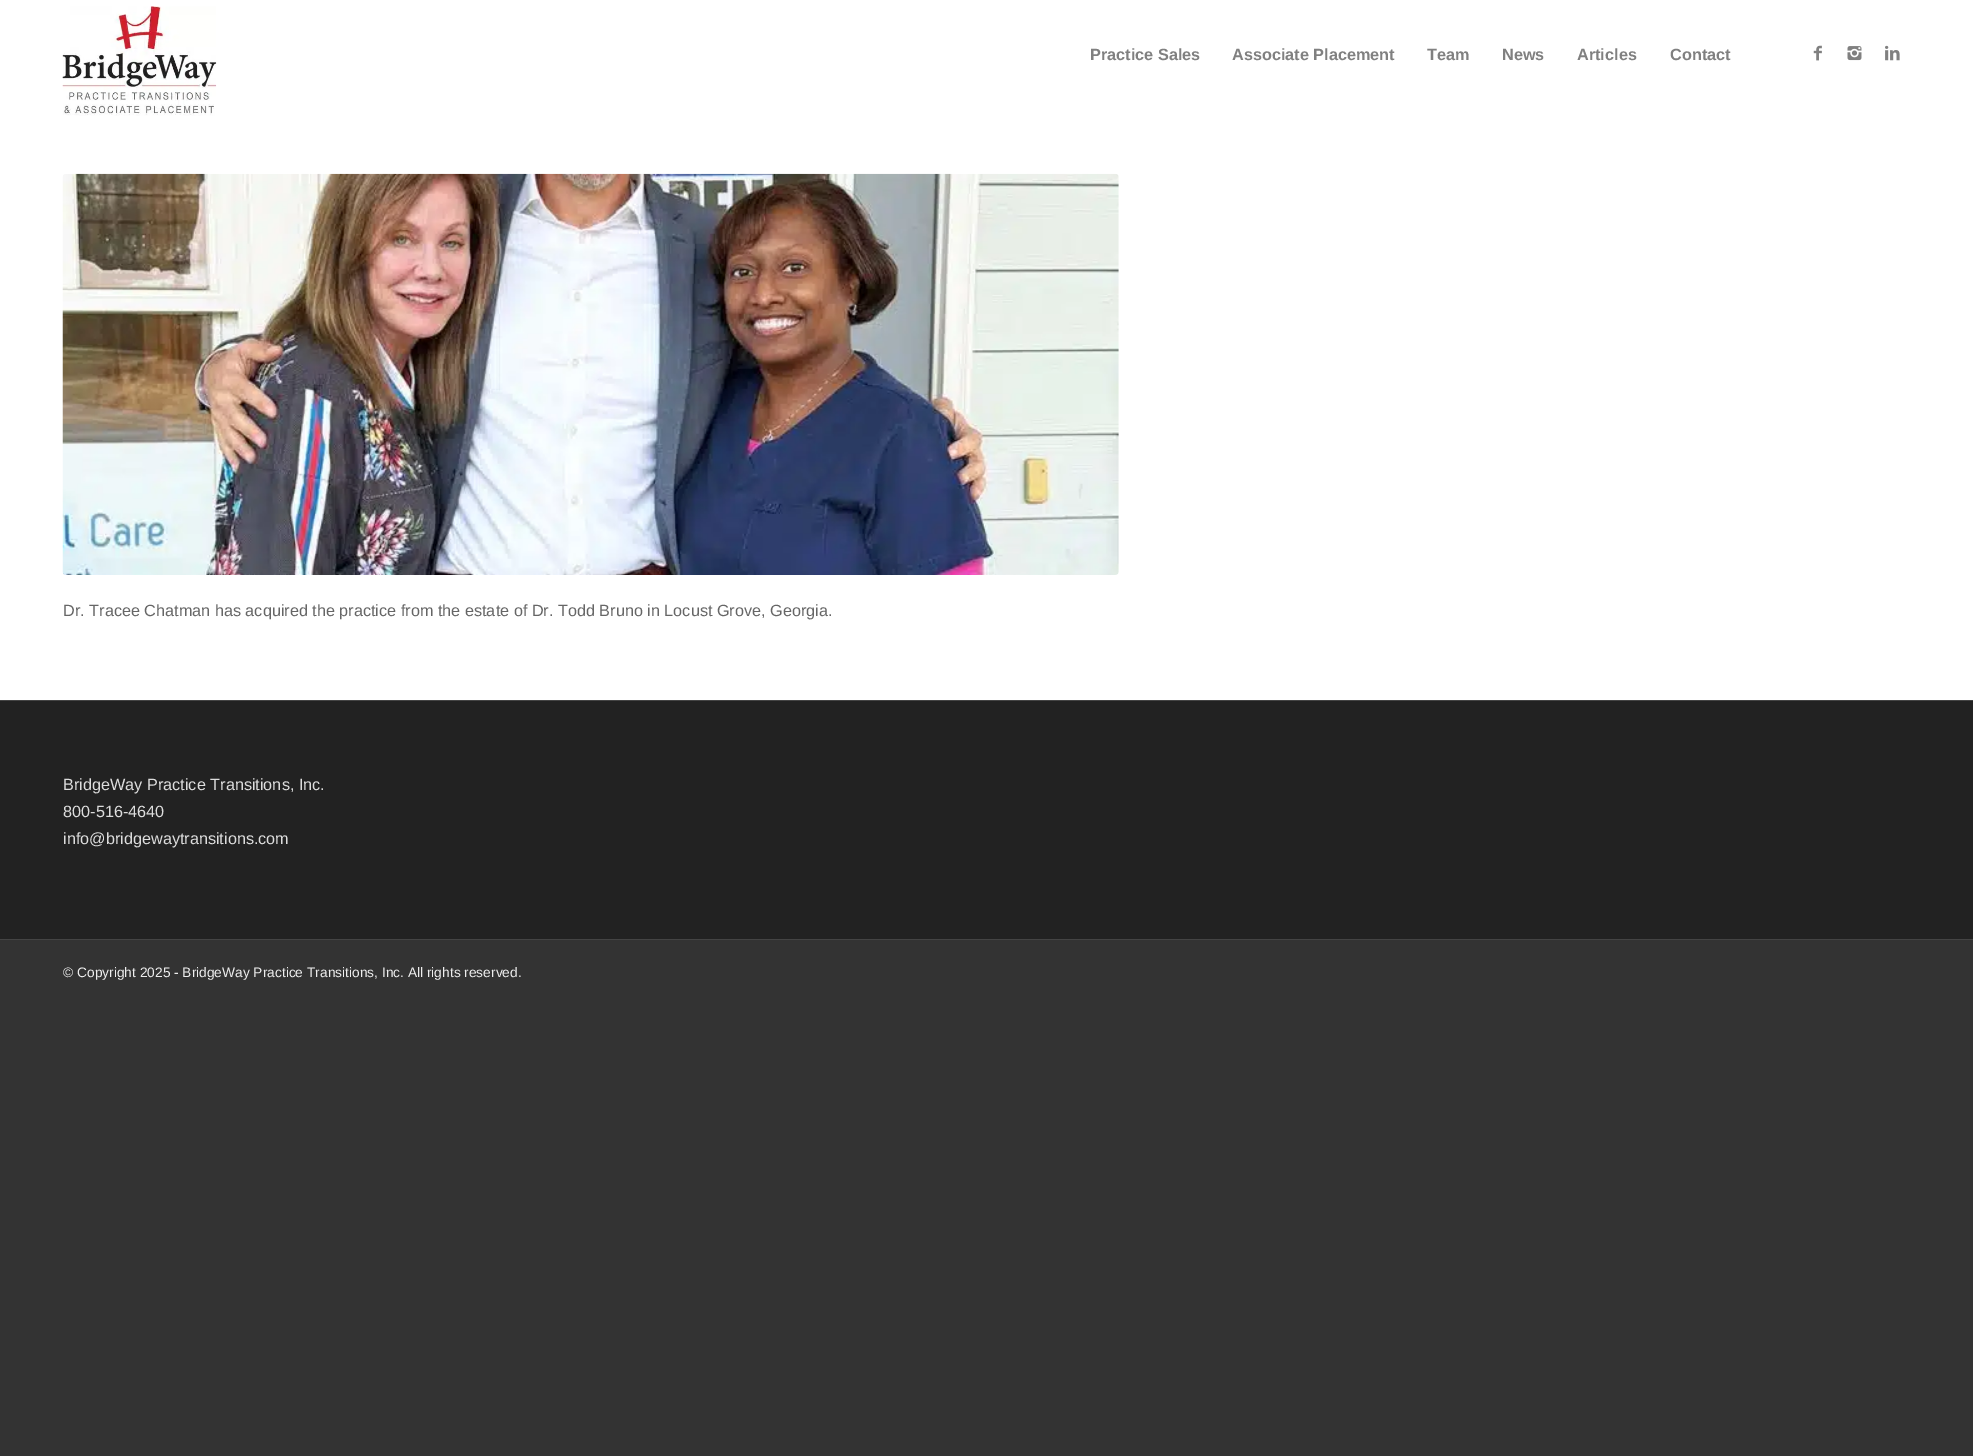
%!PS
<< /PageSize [1973 1456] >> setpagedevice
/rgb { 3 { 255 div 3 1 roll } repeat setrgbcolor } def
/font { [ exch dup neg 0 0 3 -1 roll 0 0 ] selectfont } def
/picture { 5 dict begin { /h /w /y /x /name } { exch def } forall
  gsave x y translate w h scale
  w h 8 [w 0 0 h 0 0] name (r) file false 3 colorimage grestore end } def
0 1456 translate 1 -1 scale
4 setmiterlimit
51 51 51 rgb
0 0 1973 1456 rectfill
255 255 255 rgb
0 0 1973 700 rectfill
(img/1.rgb) 62 6 155 110 picture
(img/2.rgb) 1813 45 9 16 picture
(img/3.rgb) 1847 46 15 15 picture
(img/4.rgb) 1885 45 15 16 picture
(img/5.rgb) 62 173 1057 402 picture
[
  [0 701 1973 238 34 34 34]
  [0 700 1973 1 68 68 68]
  [0 939 1973 1 68 68 68]
] { aload pop rgb rectfill } forall
/LiberationSans-Bold 16.25 font
128 128 128 rgb
[
  [(Practice Sales) 1090 60]
  [(Associate Placement) 1232 60]
  [(Team) 1427 60]
  [(News) 1502 60]
  [(Articles) 1577 60]
  [(Contact) 1670 60]
] { aload pop moveto show } forall
/LiberationSans-Regular 16.25 font
102 102 102 rgb
63 616 moveto (Dr. Tracee Chatman has acquired the practice from the estate of Dr. Todd Bruno in Locust Grove, Georgia.) show
221 221 221 rgb
[
  [(BridgeWay Practice Transitions, Inc.) 63 790]
  [(800-516-4640) 63 817]
  [(info@bridgewaytransitions.com) 63 844]
] { aload pop moveto show } forall
/LiberationSans-Regular 13.75 font
238 238 238 rgb
63 977 moveto (© Copyright 2025 - BridgeWay Practice Transitions, Inc. All rights reserved.) show
showpage
